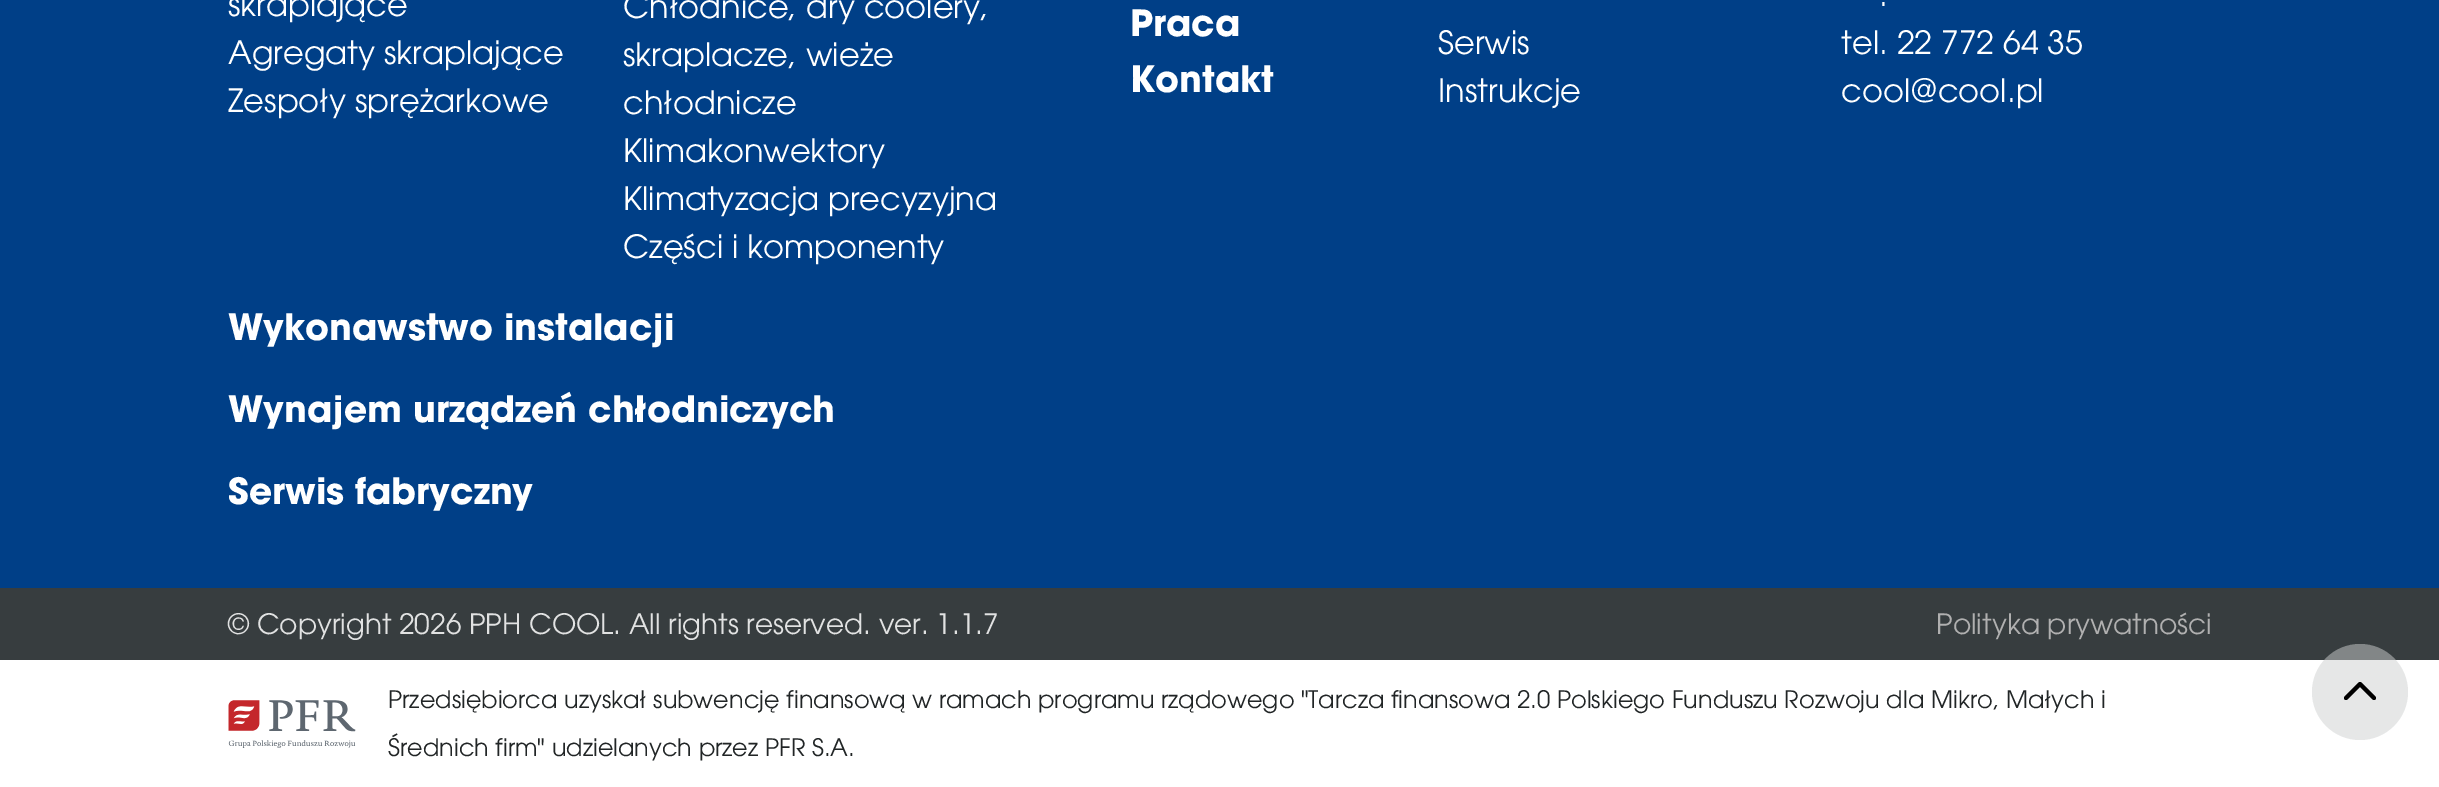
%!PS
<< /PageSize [2439 787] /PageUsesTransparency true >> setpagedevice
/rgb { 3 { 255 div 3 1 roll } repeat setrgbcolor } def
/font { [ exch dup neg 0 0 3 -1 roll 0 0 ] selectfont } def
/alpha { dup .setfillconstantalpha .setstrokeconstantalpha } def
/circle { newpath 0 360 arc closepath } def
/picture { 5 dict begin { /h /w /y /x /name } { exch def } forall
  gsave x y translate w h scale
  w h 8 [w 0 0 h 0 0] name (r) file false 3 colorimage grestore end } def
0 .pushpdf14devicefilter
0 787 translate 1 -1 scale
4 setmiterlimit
0 63 135 rgb
0 0 2439 787 rectfill
55 61 63 rgb
0 588 2439 72 rectfill
255 255 255 rgb
0 660 2439 127 rectfill
(img/1.rgb) 228 700 128 48 picture
0.5 alpha
205 207 207 rgb
2360 692 48 circle fill
1 alpha
0 0 0 rgb
4 setlinewidth
1 setlinecap
1 setlinejoin
2346 698 moveto 2360 684 lineto 2374 698 lineto stroke
/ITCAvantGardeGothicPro-Light 32 font
255 255 255 rgb
[
  [(skraplające) 228 16]
  [(Agregaty skraplające) 228 64]
  [(Zespoły sprężarkowe) 228 112]
  [(Chłodnice, dry coolery,) 623 18]
  [(skraplacze, wieże) 623 66]
  [(chłodnicze) 623 114]
  [(Klimakonwektory) 623 162]
  [(Klimatyzacja precyzyjna) 623 210]
  [(Części i komponenty) 623 258]
] { aload pop moveto show } forall
/ITCAvantGardeGothicPro-Bold 36 font
[
  [(Wykonawstwo instalacji) 228 340]
  [(Wynajem urządzeń chłodniczych) 228 422]
  [(Serwis fabryczny) 228 504]
  [(Praca) 1130 36]
  [(Kontakt) 1130 92]
] { aload pop moveto show } forall
/ITCAvantGardeGothicPro-Light 32 font
[
  [(Serwis) 1438 54]
  [(Instrukcje) 1438 102]
  [(.) 1879 6]
  [(tel. 22 772 64 35) 1841 54]
  [(cool@cool.pl) 1841 102]
] { aload pop moveto show } forall
/ITCAvantGardeGothicPro-Light 28 font
225 226 226 rgb
228 634 moveto (© Copyright 2026 PPH COOL. All rights reserved. ver. 1.1.7) show
176 176 176 rgb
1936 634 moveto (Polityka prywatności) show
/ITCAvantGardeGothicPro-Light 24 font
33 37 38 rgb
388 708 moveto (Przedsiębiorca uzyskał subwencję finansową w ramach programu rządowego "Tarcza finansowa 2.0 Polskiego Funduszu Rozwoju dla Mikro, Małych i) show
388 756 moveto (Średnich firm" udzielanych przez PFR S.A.) show
.poppdf14devicefilter showpage
